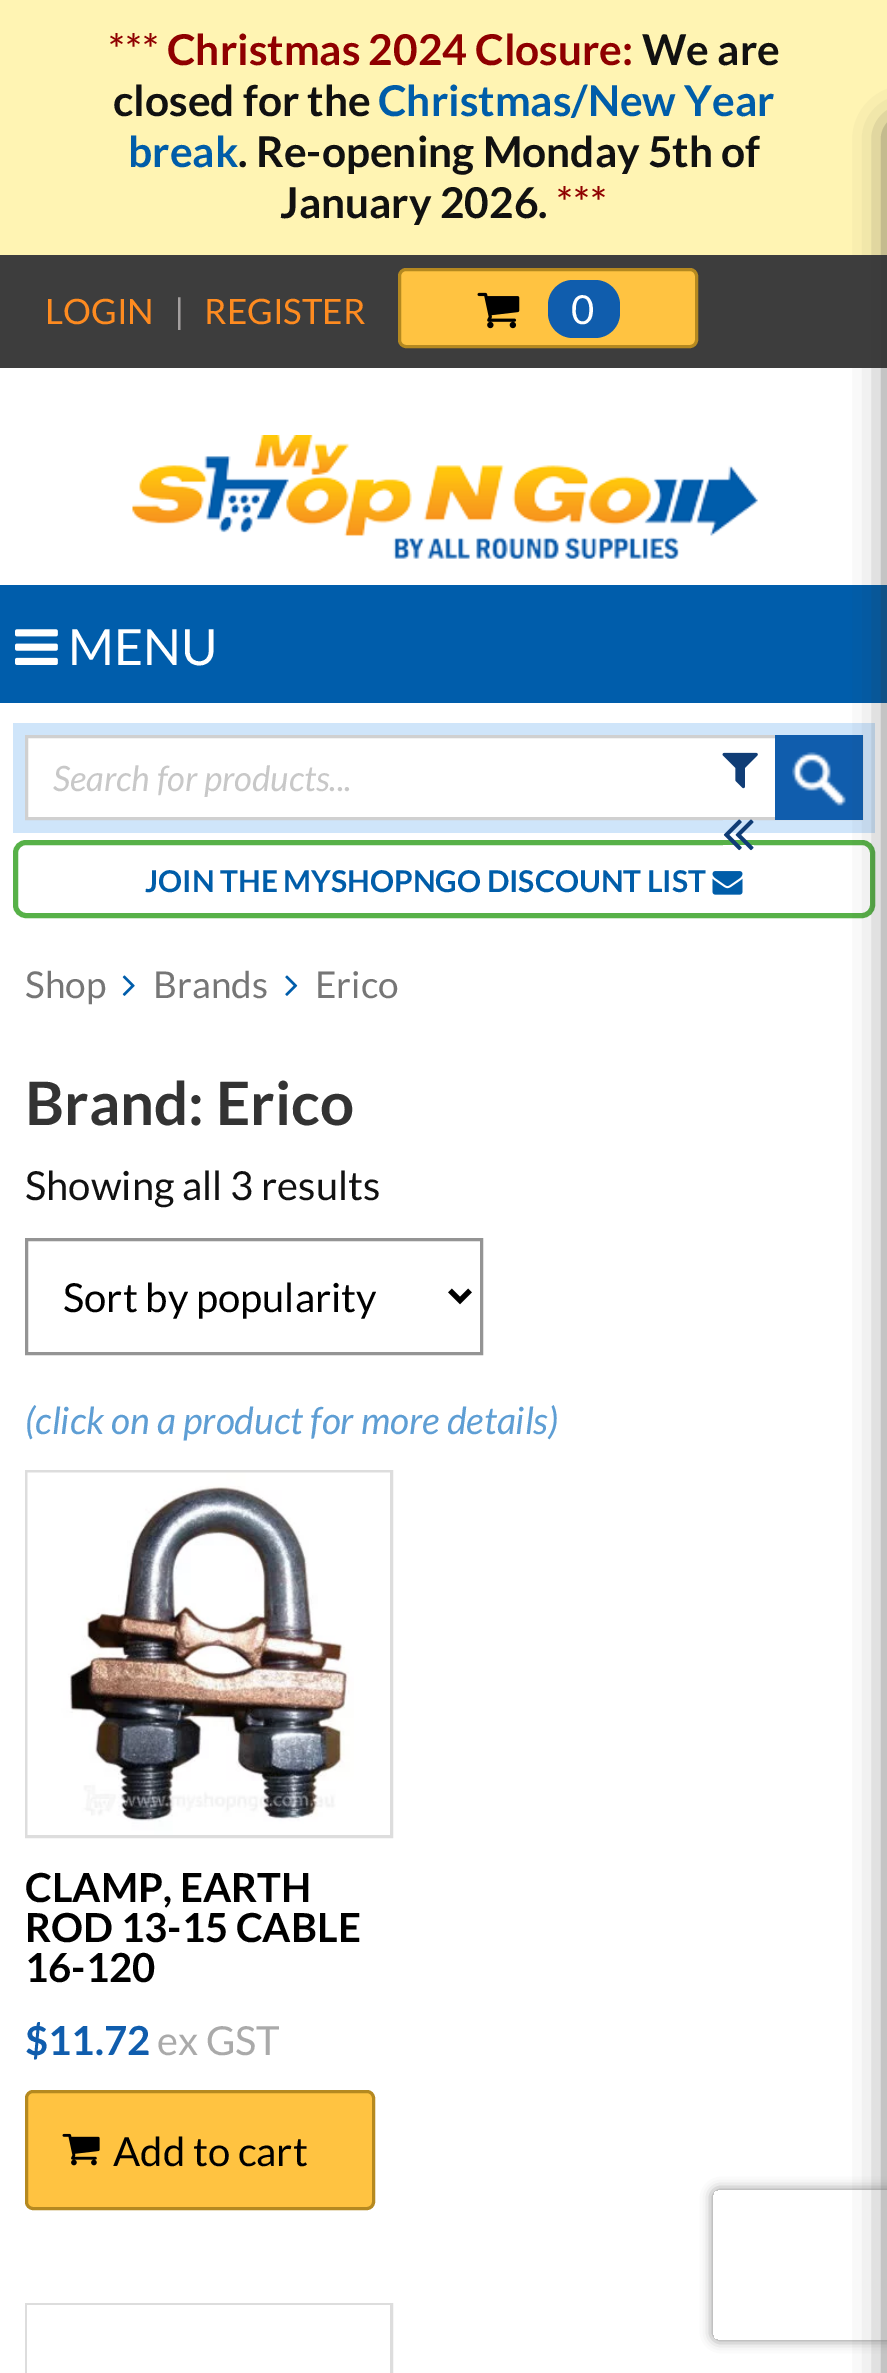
%!PS
<< /PageSize [887 2373] /PageUsesTransparency true >> setpagedevice
/rgb { 3 { 255 div 3 1 roll } repeat setrgbcolor } def
/font { [ exch dup neg 0 0 3 -1 roll 0 0 ] selectfont } def
/alpha { dup .setfillconstantalpha .setstrokeconstantalpha } def
/roundrect { 5 dict begin { /r /h /w /y /x } { exch def } forall
  x r add y moveto x w add y 2 copy h add r arct x w add y h add x 1 index r arct
  x y h add x y r arct x y 2 copy exch w add exch r arct closepath end } def
/shadow { 12 dict begin { /a /b /q /h /w /y /x } { exch def } forall gsave /was 0 def
  9 -2 -9 { dup b mul 4 div /e exch def 1 sub .425 mul 2.718 exch exp 1 add a .99 .min exch div /now exch def
    1 1 now sub 1 was sub div sub alpha /was now def
    w h .min e 2 mul add 0 gt { x e sub y e sub w e 2 mul add h e 2 mul add
      q e add b .6 mul add w h .min 2 div e add .min 0 .max roundrect fill } if } for grestore end } def
/picture { 5 dict begin { /h /w /y /x /name } { exch def } forall
  gsave x y translate w h scale
  w h 8 [w 0 0 h 0 0] name (r) file false 3 colorimage grestore end } def
0 .pushpdf14devicefilter
0 2373 translate 1 -1 scale
4 setmiterlimit
255 255 255 rgb
0 0 887 2373 rectfill
255 244 179 rgb
0 0 887 255 rectfill
61 61 61 rgb
0 255 887 113 rectfill
255 195 65 rgb
399.5 269.5 297 77 6.5 roundrect gsave fill grestore
181 137 32 rgb
3 setlinewidth
stroke
(img/1.rgb) 477 292 43 37 picture
16 93 173 rgb
548 280 72 58 25 roundrect fill
0 93 171 rgb
0 585 887 118 rectfill
(img/2.rgb) 15 629 43 36 picture
(img/3.rgb) 132 435 626 125 picture
207 229 250 rgb
13 723 862 110 rectfill
255 255 255 rgb
28 738 747 79 rectfill
208 208 208 rgb
26.5 736.5 835 82 rectstroke
16 93 173 rgb
775 735 88 85 rectfill
(img/4.rgb) 792 752 54 54 picture
87 177 72 rgb
5 setlinewidth
15.5 842.5 857 73 10.5 roundrect stroke
(img/5.rgb) 712 871 31 24 picture
(img/6.rgb) 122 975 13 21 picture
(img/7.rgb) 285 975 13 21 picture
51 51 51 rgb
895 128 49 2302 0 19 1 shadow
(img/8.rgb) 722 752 36 37 picture
(img/9.rgb) 723 819 31 32 picture
148 148 148 rgb
3 setlinewidth
26.5 1239.5 455 114 rectstroke
0 0 0 rgb
5 setlinewidth
450 1290.5 moveto 460 1300.5 lineto 470 1290.5 lineto stroke
221 221 221 rgb
3 setlinewidth
26.5 1471.5 365 365 rectstroke
(img/10.rgb) 27 1472 363 363 picture
255 195 65 rgb
26.5 2091.5 347 117 6.5 roundrect gsave fill grestore
181 137 32 rgb
stroke
(img/11.rgb) 62 2133 38 33 picture
221 221 221 rgb
26.5 2304.5 365 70 rectstroke
255 255 255 rgb
27 2305 363 68 rectfill
gsave
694 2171 moveto 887 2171 lineto 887 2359 lineto 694 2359 lineto closepath 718 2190 moveto 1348 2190 lineto 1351 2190 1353 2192 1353 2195 curveto 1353 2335 lineto 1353 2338 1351 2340 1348 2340 curveto 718 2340 lineto 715 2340 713 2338 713 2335 curveto 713 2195 lineto 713 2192 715 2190 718 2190 curveto closepath eoclip newpath
128 128 128 rgb
713 2190 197 150 5 6 1 shadow
grestore
/Lato-Regular 42.5 font
143 0 0 rgb
108 65 moveto (***) show
/Lato-Bold 42.5 font
167 65 moveto (Christmas 2024 Closure:) show
17 17 17 rgb
642 65 moveto (We are) show
113 116 moveto (closed for the) show
0 93 169 rgb
378 116 moveto (Christmas/New Year) show
128 167 moveto (break) show
17 17 17 rgb
238 167 moveto (. Re-opening Monday 5th of) show
280 218 moveto (January 2026.) show
/Lato-Regular 42.5 font
143 0 0 rgb
556 218 moveto (***) show
/Lato-Regular 35 font
254 139 32 rgb
45 324 moveto (LOGIN) show
163 159 159 rgb
174 324 moveto (|) show
254 139 32 rgb
204 324 moveto (REGISTER) show
/Lato-Regular 40 font
255 255 255 rgb
571 324 moveto (0) show
/Lato-Regular 50 font
68 665 moveto (MENU) show
/Lato-Italic 35 font
200 200 200 rgb
53 791 moveto (Search for products...) show
/Lato-Bold 30 font
0 93 169 rgb
145 892 moveto (JOIN THE MYSHOPNGO DISCOUNT LIST) show
/Lato-Regular 37 font
118 118 118 rgb
[
  [(Shop) 25 998]
  [(Brands) 153 998]
  [(Erico) 315 998]
] { aload pop moveto show } forall
/Lato-Bold 60 font
51 51 51 rgb
25 1125 moveto (Brand: Erico) show
/Lato-Regular 40 font
17 17 17 rgb
25 1200 moveto (Showing all 3 results) show
0 0 0 rgb
63 1312 moveto (Sort by popularity) show
/Lato-Italic 37.5 font
94 158 212 rgb
25 1434 moveto (\(click on a product for more details\)) show
/Lato-Bold 40 font
0 0 0 rgb
[
  [(CLAMP, EARTH) 25 1902]
  [(ROD 13-15 CABLE) 25 1942]
  [(16-120) 25 1982]
] { aload pop moveto show } forall
16 93 173 rgb
25 2055 moveto ($11.72) show
/Lato-Regular 40 font
170 170 170 rgb
157 2055 moveto (ex GST) show
0 0 0 rgb
113 2166 moveto (Add to cart) show
.poppdf14devicefilter showpage
